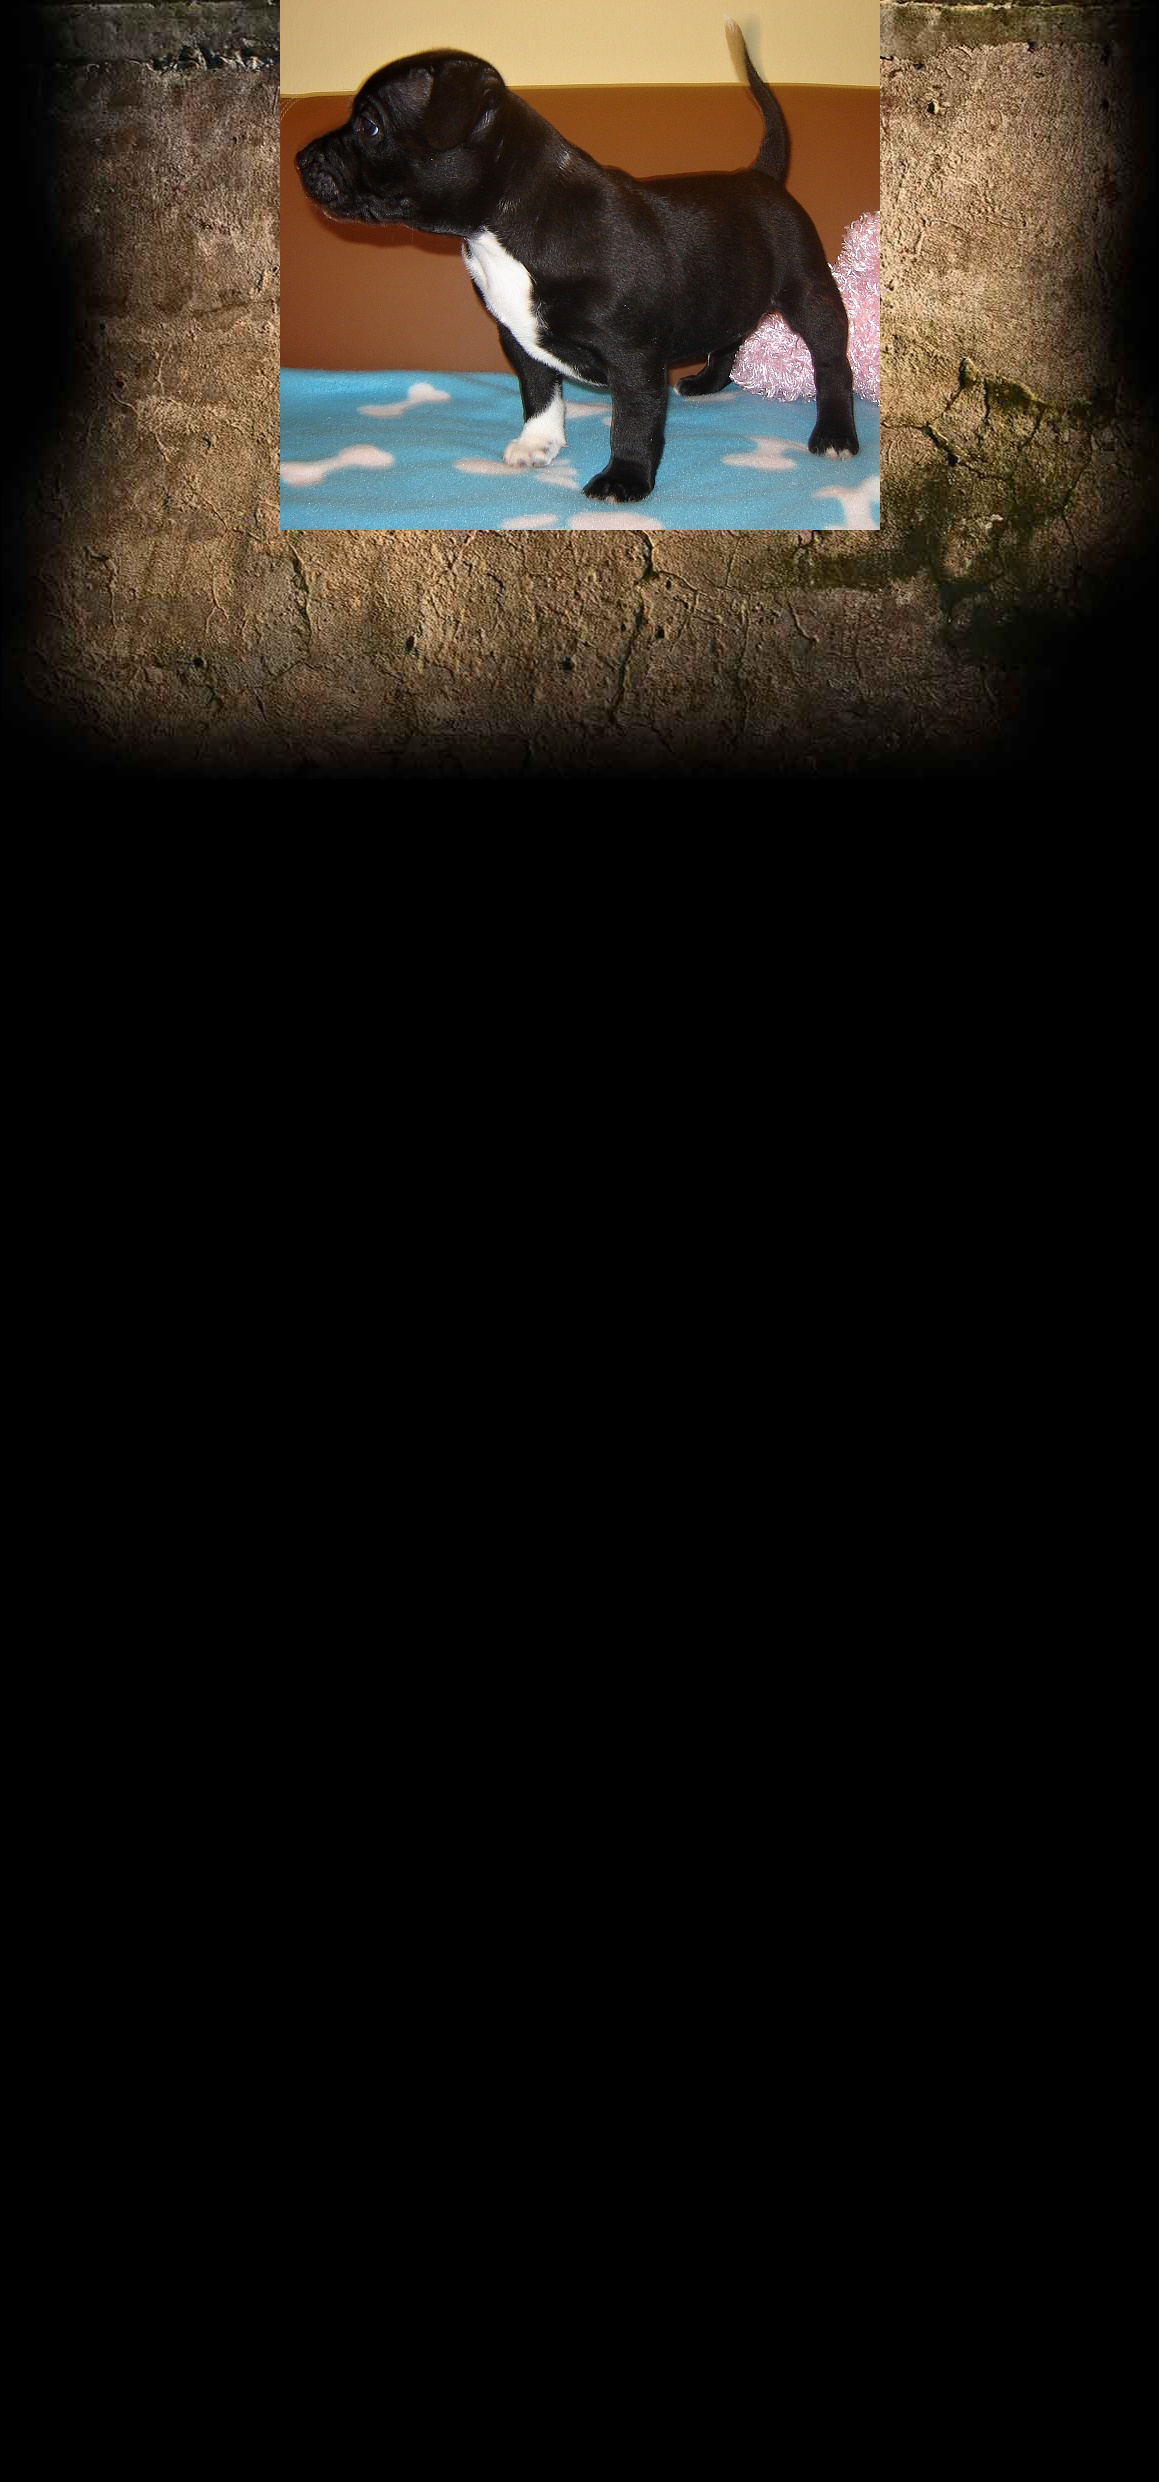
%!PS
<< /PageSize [1159 2482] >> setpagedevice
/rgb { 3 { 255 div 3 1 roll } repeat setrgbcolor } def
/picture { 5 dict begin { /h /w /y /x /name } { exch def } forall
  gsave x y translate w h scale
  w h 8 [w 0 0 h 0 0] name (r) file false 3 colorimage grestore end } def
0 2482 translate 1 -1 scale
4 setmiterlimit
0 0 0 rgb
0 0 1159 2482 rectfill
(img/1.rgb) 1 0 1158 779 picture
(img/2.rgb) 280 0 600 530 picture
showpage
